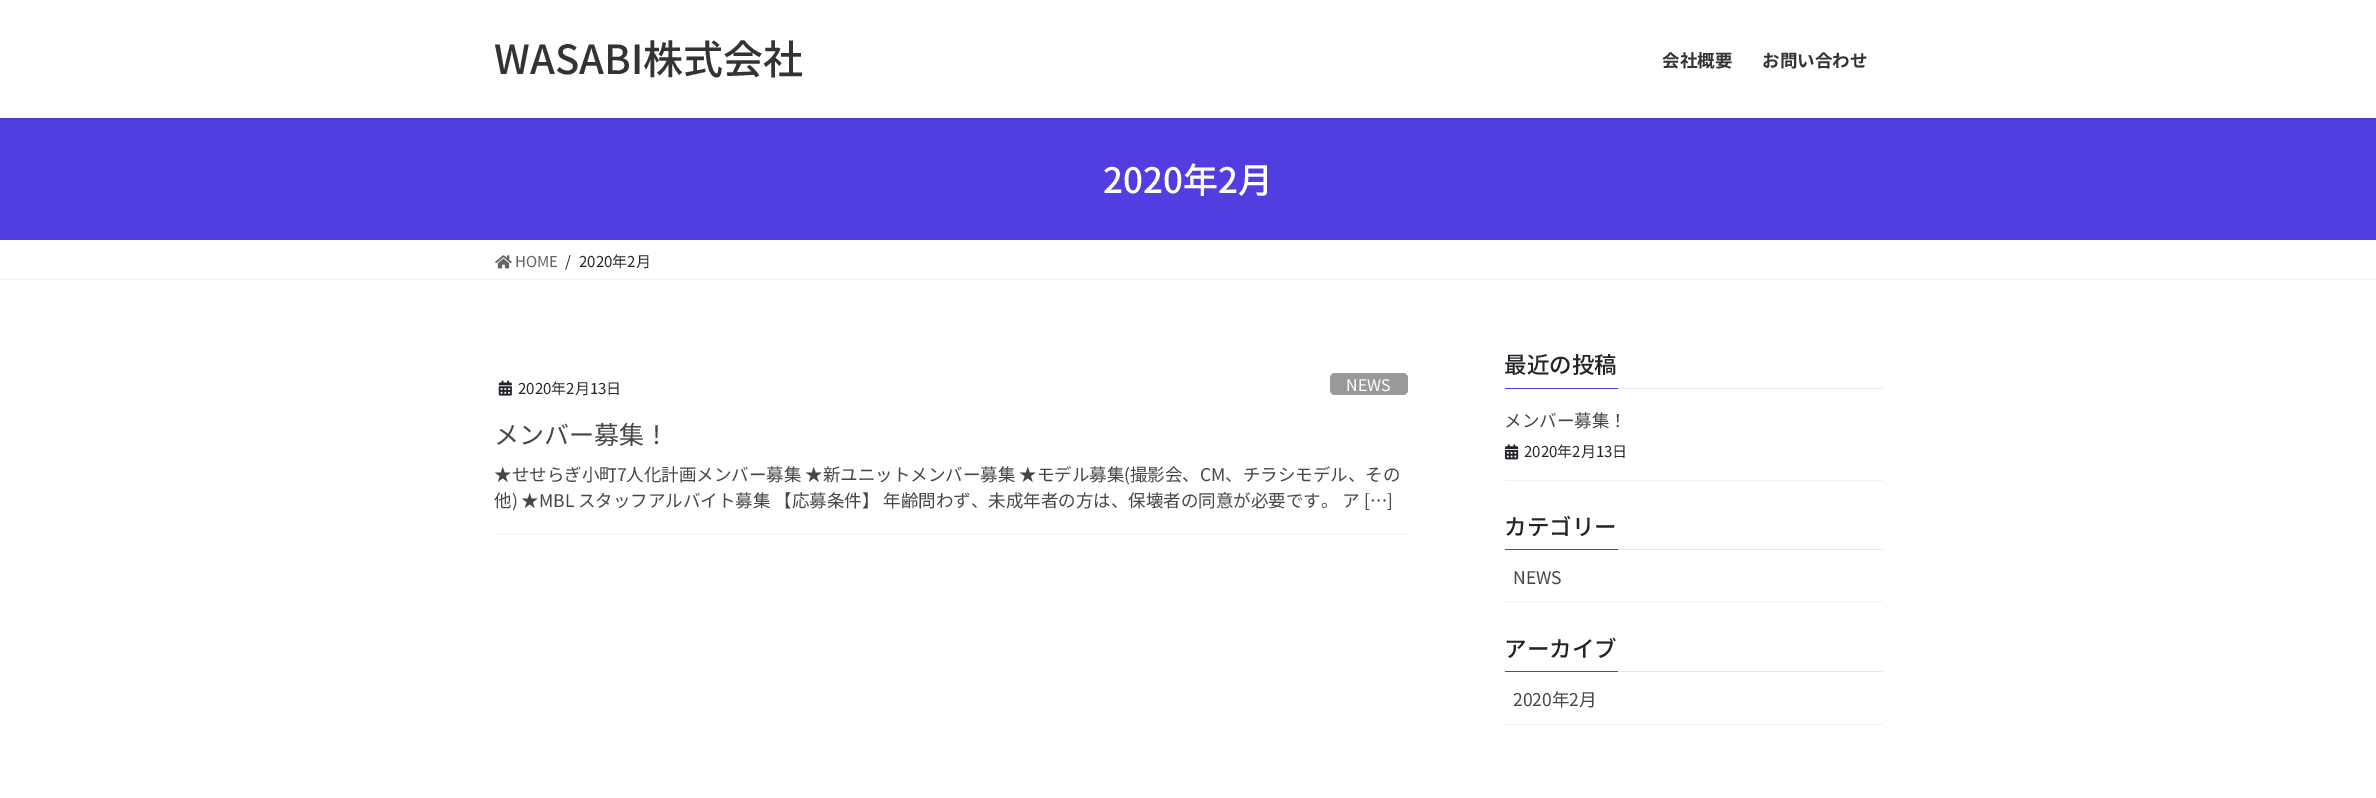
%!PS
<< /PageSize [2376 798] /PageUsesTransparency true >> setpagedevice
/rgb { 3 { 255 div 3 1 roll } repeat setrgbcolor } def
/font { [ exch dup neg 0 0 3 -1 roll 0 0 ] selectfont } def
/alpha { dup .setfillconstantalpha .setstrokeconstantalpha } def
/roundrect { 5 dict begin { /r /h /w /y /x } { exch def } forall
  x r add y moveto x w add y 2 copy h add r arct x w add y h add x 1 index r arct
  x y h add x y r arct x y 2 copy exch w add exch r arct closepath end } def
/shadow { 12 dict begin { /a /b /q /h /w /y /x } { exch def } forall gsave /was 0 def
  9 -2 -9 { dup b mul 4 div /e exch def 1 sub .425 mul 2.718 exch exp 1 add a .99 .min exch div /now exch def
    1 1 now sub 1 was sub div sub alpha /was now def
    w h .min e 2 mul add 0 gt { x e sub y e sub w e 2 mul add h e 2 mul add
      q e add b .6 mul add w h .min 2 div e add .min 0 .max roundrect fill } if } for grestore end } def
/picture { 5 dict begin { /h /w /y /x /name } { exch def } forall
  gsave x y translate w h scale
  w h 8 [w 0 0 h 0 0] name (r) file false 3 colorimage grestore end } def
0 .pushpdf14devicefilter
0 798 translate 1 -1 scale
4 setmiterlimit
255 255 255 rgb
0 0 2376 798 rectfill
81 62 224 rgb
0 118 2376 122 rectfill
0 0 0 rgb
0 1 2376 118 0 2 0.1 shadow
255 255 255 rgb
0 0 2376 118 rectfill
242 242 242 rgb
0 279 2376 1 rectfill
(img/1.rgb) 495 255 17 14 picture
495 534 913 1 rectfill
(img/2.rgb) 498 380 14 16 picture
153 153 153 rgb
1330 373 78 22 5 roundrect fill
[
  [1618 388 265 1 230 230 230]
  [1505 388 113 1 81 62 224]
  [1505 480 378 1 242 242 242]
] { aload pop rgb rectfill } forall
(img/3.rgb) 1505 444 14 16 picture
[
  [1618 549 265 1 230 230 230]
  [1505 549 113 1 81 62 224]
  [1505 601 378 1 242 242 242]
  [1618 671 265 1 230 230 230]
  [1505 671 113 1 81 62 224]
  [1505 724 378 1 242 242 242]
] { aload pop rgb rectfill } forall
/NotoSansJP-Medium 40 font
51 51 51 rgb
494 74 moveto (WASABI株式会社) show
/NotoSansJP-Bold 17.5 font
1662 67 moveto (会社概要) show
1762 67 moveto (お問い合わせ) show
/NotoSansJP-Medium 35 font
255 255 255 rgb
1103 193 moveto (2020年2月) show
/NotoSansJP-Regular 15 font
102 102 102 rgb
515 267 moveto (HOME) show
33 37 41 rgb
[
  [(/) 565 267]
  [(2020年2月) 579 267]
  [(2020年2月13日) 518 394]
] { aload pop moveto show } forall
/NotoSansJP-Regular 16 font
255 255 255 rgb
1346 391 moveto (NEWS) show
/NotoSansJP-Regular 25 font
70 70 70 rgb
494 444 moveto (メンバー募集！) show
/NotoSansJP-Regular 17.5 font
494 481 moveto (★せせらぎ小町7人化計画メンバー募集 ★新ユニットメンバー募集 ★モデル募集\(撮影会、CM、チラシモデル、その) show
494 507 moveto (他\) ★MBL スタッフアルバイト募集 【応募条件】 年齢問わず、未成年者の方は、保壊者の同意が必要です。 ア […]) show
/NotoSansJP-Medium 22.5 font
33 37 41 rgb
1504 373 moveto (最近の投稿) show
/NotoSansJP-Regular 17.5 font
70 70 70 rgb
1504 427 moveto (メンバー募集！) show
/NotoSansJP-Regular 15 font
33 37 41 rgb
1524 457 moveto (2020年2月13日) show
/NotoSansJP-Medium 22.5 font
1504 535 moveto (カテゴリー) show
/NotoSansJP-Regular 17.5 font
70 70 70 rgb
1513 584 moveto (NEWS) show
/NotoSansJP-Medium 22.5 font
33 37 41 rgb
1504 657 moveto (アーカイブ) show
/NotoSansJP-Regular 17.5 font
70 70 70 rgb
1513 706 moveto (2020年2月) show
.poppdf14devicefilter showpage
